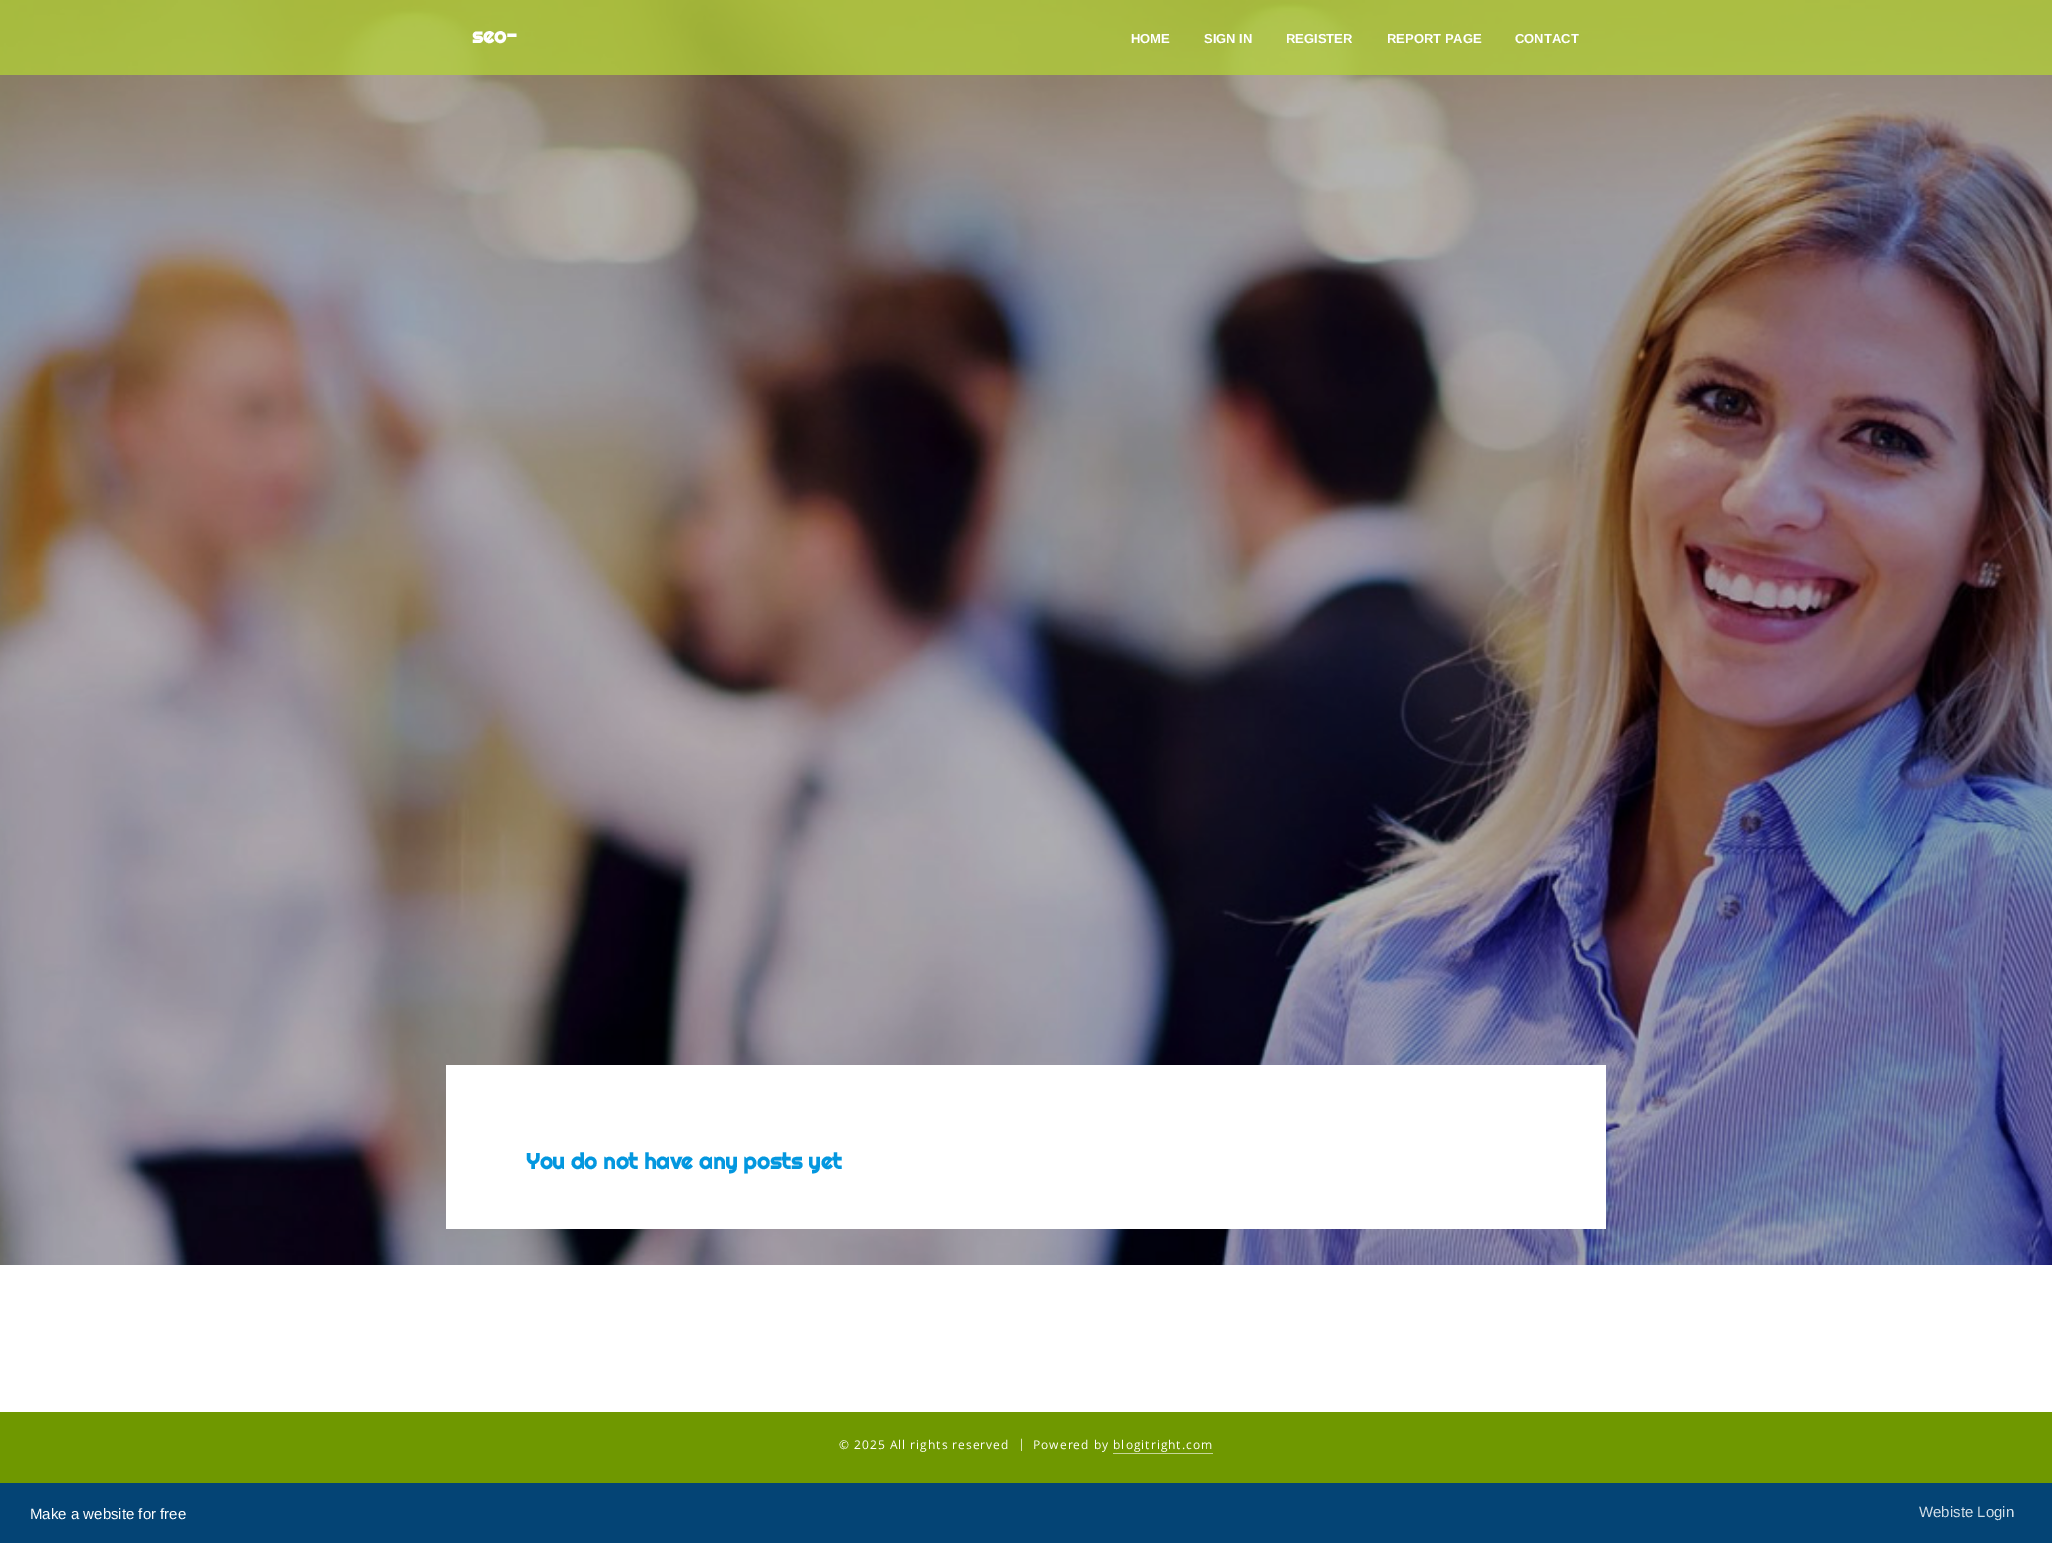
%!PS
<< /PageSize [2052 1543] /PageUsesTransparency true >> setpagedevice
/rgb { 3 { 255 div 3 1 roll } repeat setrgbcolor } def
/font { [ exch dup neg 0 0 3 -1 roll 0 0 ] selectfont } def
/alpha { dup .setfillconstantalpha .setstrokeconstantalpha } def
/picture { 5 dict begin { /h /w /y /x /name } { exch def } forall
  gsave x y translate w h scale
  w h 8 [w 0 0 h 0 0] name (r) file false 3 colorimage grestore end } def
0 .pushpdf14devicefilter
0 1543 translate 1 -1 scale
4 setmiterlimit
255 255 255 rgb
0 0 2052 1543 rectfill
(img/1.rgb) 0 0 2052 1265 picture
0.75 alpha
[
  [0 0 2052 75 179 210 54]
] { aload pop rgb rectfill } forall
1 alpha
[
  [446 1065 1160 164 255 255 255]
  [0 1412 2052 71 111 152 0]
  [1113 1453 100 1 197 214 153]
  [0 1483 2052 60 4 68 117]
] { aload pop rgb rectfill } forall
/Righteous-Bold 21 font
255 255 255 rgb
472 43 moveto (seo-) show
/LiberationSans-Bold 13 font
[
  [(HOME) 1131 43]
  [(SIGN IN) 1204 43]
  [(REGISTER) 1286 43]
  [(REPORT PAGE) 1387 43]
  [(CONTACT) 1515 43]
] { aload pop moveto show } forall
/Righteous-Bold 22 font
3 151 223 rgb
526 1169 moveto (You do not have any posts yet) show
/OpenSans-Regular 12 font
255 255 255 rgb
839 1449 moveto 1 0 (© 2025 All rights reserved) ashow
1018 1448 moveto 1 0 (|) ashow
1033 1449 moveto 1 0 (Powered by blogitright.com) ashow
/LiberationSans-Regular 15 font
30 1519 moveto (Make a website for free) show
212 223 232 rgb
1919 1517 moveto (Webiste Login) show
.poppdf14devicefilter showpage
